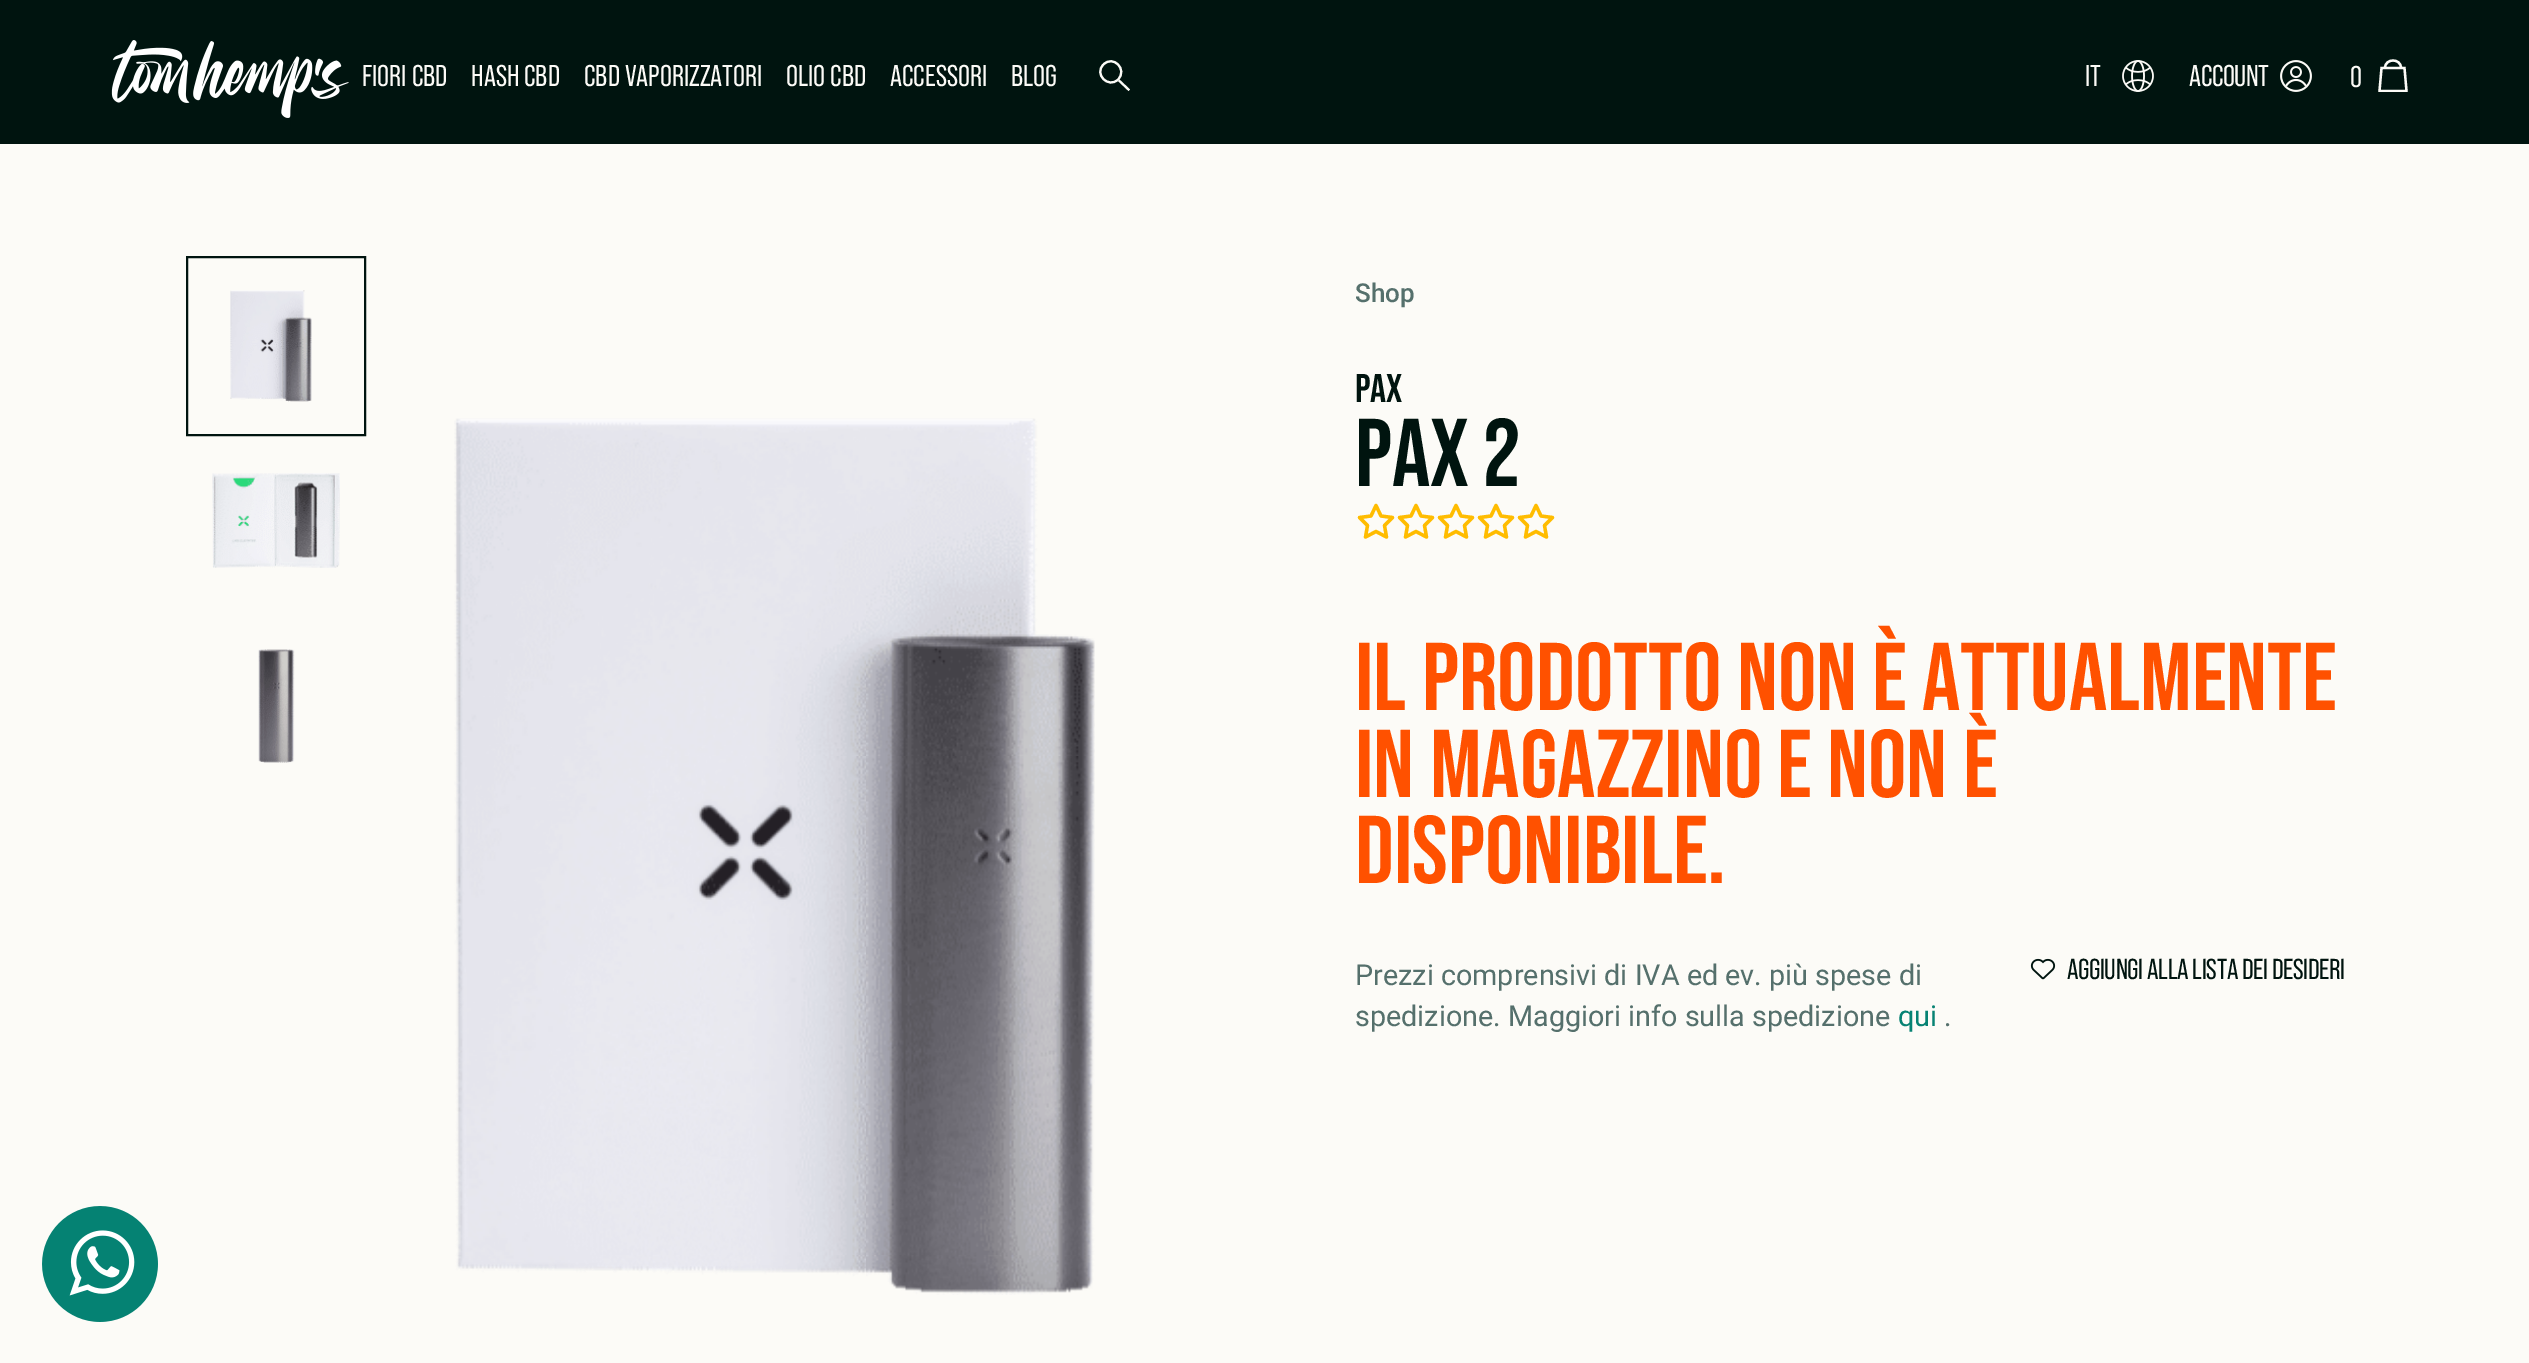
%!PS
<< /PageSize [2529 1363] >> setpagedevice
/rgb { 3 { 255 div 3 1 roll } repeat setrgbcolor } def
/font { [ exch dup neg 0 0 3 -1 roll 0 0 ] selectfont } def
/picture { 5 dict begin { /h /w /y /x /name } { exch def } forall
  gsave x y translate w h scale
  w h 8 [w 0 0 h 0 0] name (r) file false 3 colorimage grestore end } def
0 1363 translate 1 -1 scale
4 setmiterlimit
252 251 247 rgb
0 0 2529 1363 rectfill
0 20 15 rgb
0 0 2529 144 rectfill
(img/1.rgb) 111 40 238 78 picture
252 251 247 rgb
2.1 setlinewidth
1103.5 64.5 moveto 1113 54.5 1128 69.5 1118 79.5 curveto 1108.5 89 1093.5 74 1103.5 64.5 curveto closepath stroke
2 setlinecap
1119.5 81 moveto 1128.5 89.5 lineto stroke
(img/2.rgb) 2122 60 32 32 picture
(img/3.rgb) 2280 60 32 32 picture
gsave
2376 58 34 34 rectclip
2.3 setlinewidth
0 setlinecap
2401 68 moveto 2401 58 2385 58 2385 68 curveto 2404.5 68 moveto 2381.5 68 lineto 2379.5 91 lineto 2406.5 91 lineto closepath stroke
grestore
0 20 15 rgb
2 setlinewidth
0 setlinecap
187 257 178 178 rectstroke
(img/4.rgb) 230 290 82 112 picture
(img/5.rgb) 212 473 128 95 picture
(img/6.rgb) 258 649 37 114 picture
(img/7.rgb) 454 418 641 877 picture
255 188 0 rgb
3.3 setlinewidth
1 setlinecap
1 setlinejoin
1376 531.5 moveto 1365.5 537 lineto 1367.5 525.5 lineto 1359.5 517.5 lineto 1371 516 lineto 1376 505.5 lineto 1381 516 lineto 1392.5 517.5 lineto 1384.5 525.5 lineto 1386.5 537 lineto closepath stroke
1416 531.5 moveto 1405.5 537 lineto 1407.5 525.5 lineto 1399.5 517.5 lineto 1411 516 lineto 1416 505.5 lineto 1421 516 lineto 1432.5 517.5 lineto 1424.5 525.5 lineto 1426.5 537 lineto closepath stroke
1456 531.5 moveto 1445.5 537 lineto 1447.5 525.5 lineto 1439.5 517.5 lineto 1451 516 lineto 1456 505.5 lineto 1461 516 lineto 1472.5 517.5 lineto 1464.5 525.5 lineto 1466.5 537 lineto closepath stroke
1496 531.5 moveto 1485.5 537 lineto 1487.5 525.5 lineto 1479.5 517.5 lineto 1491 516 lineto 1496 505.5 lineto 1501 516 lineto 1512.5 517.5 lineto 1504.5 525.5 lineto 1506.5 537 lineto closepath stroke
1536 531.5 moveto 1525.5 537 lineto 1527.5 525.5 lineto 1519.5 517.5 lineto 1531 516 lineto 1536 505.5 lineto 1541 516 lineto 1552.5 517.5 lineto 1544.5 525.5 lineto 1546.5 537 lineto closepath stroke
(img/8.rgb) 2030 958 26 22 picture
(img/9.rgb) 42 1206 116 116 picture
/BebasNeue-Regular 30 font
252 251 247 rgb
[
  [(FIORI CBD) 362 86]
  [(HASH CBD) 471 86]
  [(CBD VAPORIZZATORI) 584 86]
  [(OLIO CBD) 786 86]
  [(ACCESSORI) 890 86]
  [(BLOG) 1011 86]
  [(IT) 2085 86]
] { aload pop moveto show } forall
2189 86 moveto -0.4 0 (ACCOUNT) ashow
2350 87 moveto -0.4 0 (0) ashow
/Roboto-Medium 26 font
85 112 108 rgb
1355 302 moveto (Shop) show
/BebasNeue-Bold 40 font
0 20 15 rgb
1355 402 moveto (PAX) show
/BebasNeue-Bold 96 font
1355 486 moveto (PAX 2) show
255 81 0 rgb
[
  [(IL PRODOTTO NON È ATTUALMENTE) 1355 710]
  [(IN MAGAZZINO E NON È) 1355 797]
  [(DISPONIBILE.) 1355 883]
] { aload pop moveto show } forall
/Roboto-Regular 28.75 font
85 112 108 rgb
1355 985 moveto (Prezzi comprensivi di IVA ed ev. più spese di) show
1355 1026 moveto (spedizione. Maggiori info sulla spedizione) show
6 130 115 rgb
1898 1026 moveto (qui) show
85 112 108 rgb
1944 1026 moveto (.) show
/BebasNeue-Regular 28.75 font
0 20 15 rgb
2067 979 moveto -0.4 0 (AGGIUNGI ALLA LISTA DEI DESIDERI) ashow
showpage
